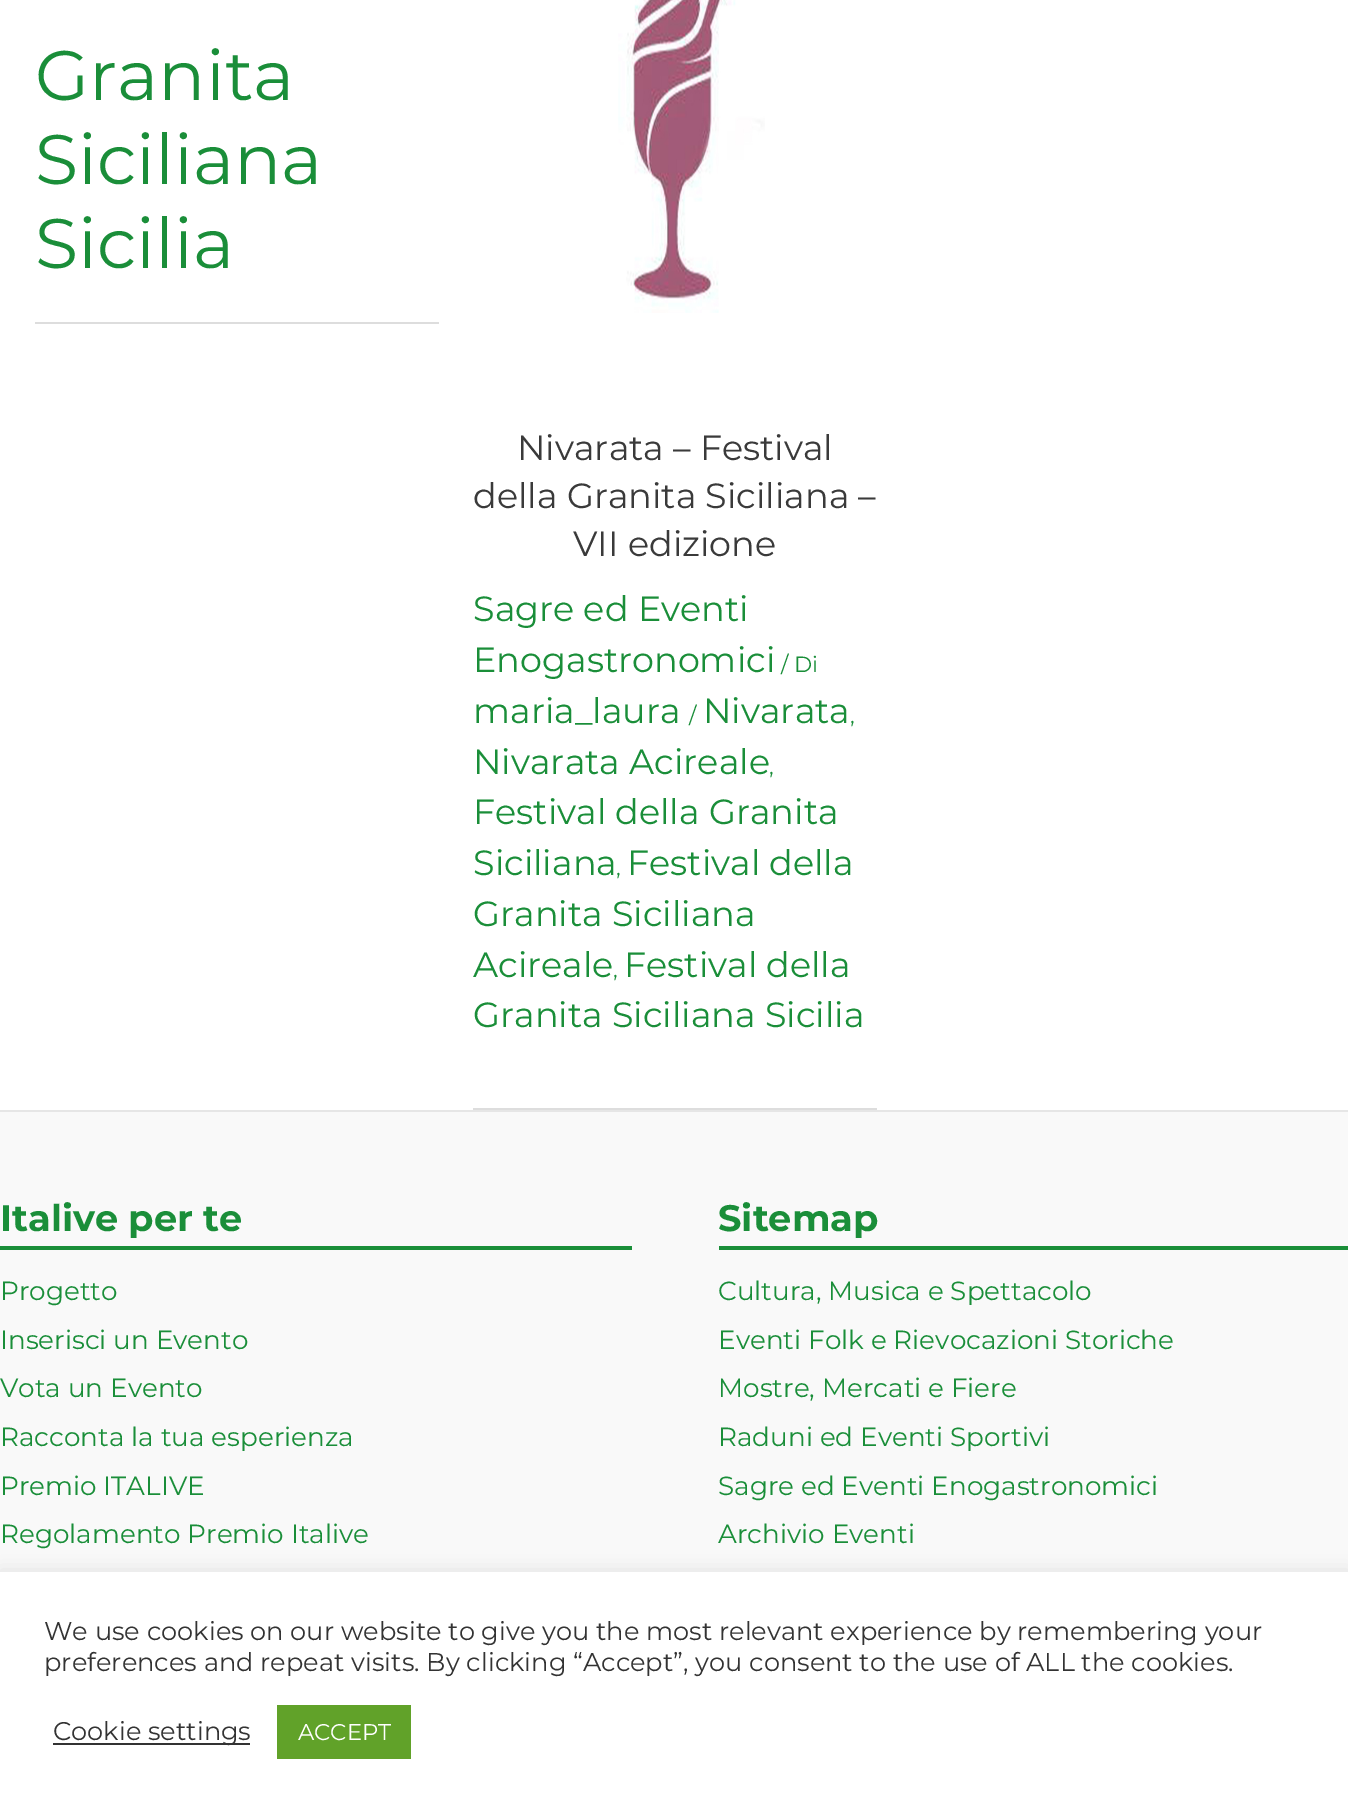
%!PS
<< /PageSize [1348 1810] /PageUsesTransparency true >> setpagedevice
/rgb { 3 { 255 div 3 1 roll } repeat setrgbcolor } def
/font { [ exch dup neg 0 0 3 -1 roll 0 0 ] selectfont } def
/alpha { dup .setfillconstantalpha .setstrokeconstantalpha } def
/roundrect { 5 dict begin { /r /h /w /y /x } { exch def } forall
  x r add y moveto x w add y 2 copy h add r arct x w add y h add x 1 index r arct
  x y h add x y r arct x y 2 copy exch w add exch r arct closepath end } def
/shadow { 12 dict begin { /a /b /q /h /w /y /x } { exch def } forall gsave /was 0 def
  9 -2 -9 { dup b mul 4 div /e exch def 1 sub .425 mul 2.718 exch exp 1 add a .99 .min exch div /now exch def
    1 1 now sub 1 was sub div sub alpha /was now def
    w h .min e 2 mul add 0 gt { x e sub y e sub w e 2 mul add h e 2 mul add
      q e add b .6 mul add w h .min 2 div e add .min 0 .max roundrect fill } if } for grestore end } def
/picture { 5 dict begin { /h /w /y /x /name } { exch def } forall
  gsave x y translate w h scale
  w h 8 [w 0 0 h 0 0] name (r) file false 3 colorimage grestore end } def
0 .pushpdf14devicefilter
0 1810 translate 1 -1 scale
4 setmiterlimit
255 255 255 rgb
0 0 1348 1810 rectfill
221 221 221 rgb
35 322 404 2 rectfill
473 1108 404 2 rectfill
(img/1.rgb) 618 0 147 313 picture
[
  [0 1112 1348 460 249 249 249]
  [0 1110 1348 2 230 230 230]
  [0 1246 632 4 26 142 57]
  [719 1246 629 4 26 142 57]
] { aload pop rgb rectfill } forall
172 171 171 rgb
0 1570 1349 240 0 9 0.3 shadow
[
  [0 1572 1348 238 255 255 255]
  [53 1743 197 2 51 51 51]
  [277 1705 134 54 97 162 41]
] { aload pop rgb rectfill } forall
/Montserrat-Regular 70 font
26 142 57 rgb
[
  [(Granita) 35 100]
  [(Siciliana) 35 184]
  [(Sicilia) 35 268]
] { aload pop moveto show } forall
/Montserrat-Regular 35 font
58 58 58 rgb
[
  [(Nivarata – Festival) 517 460]
  [(della Granita Siciliana –) 473 508]
  [(VII edizione) 573 556]
] { aload pop moveto show } forall
26 142 57 rgb
473 621 moveto (Sagre ed Eventi) show
473 672 moveto (Enogastronomici) show
/Montserrat-Regular 22 font
781 672 moveto (/ Di) show
/Montserrat-Regular 35 font
473 723 moveto (maria_laura) show
/Montserrat-Regular 22 font
689 723 moveto (/) show
/Montserrat-Regular 35 font
703 723 moveto (Nivarata) show
/Montserrat-Regular 22 font
850 723 moveto (,) show
/Montserrat-Regular 35 font
473 774 moveto (Nivarata Acireale) show
/Montserrat-Regular 22 font
769 774 moveto (,) show
/Montserrat-Regular 35 font
473 824 moveto (Festival della Granita) show
473 875 moveto (Siciliana) show
/Montserrat-Regular 22 font
616 875 moveto (,) show
/Montserrat-Regular 35 font
[
  [(Festival della) 627 875]
  [(Granita Siciliana) 473 926]
  [(Acireale) 473 977]
] { aload pop moveto show } forall
/Montserrat-Regular 22 font
613 977 moveto (,) show
/Montserrat-Regular 35 font
624 977 moveto (Festival della) show
473 1027 moveto (Granita Siciliana Sicilia) show
/Montserrat-Bold 36.75 font
0 1231 moveto (Italive per te) show
/Montserrat-Regular 26.25 font
[
  [(Progetto) 0 1300]
  [(Inserisci un Evento) 0 1349]
  [(Vota un Evento) 0 1397]
  [(Racconta la tua esperienza) 0 1446]
  [(Premio ITALIVE) 0 1495]
  [(Regolamento Premio Italive) 0 1543]
] { aload pop moveto show } forall
/Montserrat-Bold 36.75 font
718 1231 moveto (Sitemap) show
/Montserrat-Regular 26.25 font
[
  [(Cultura, Musica e Spettacolo) 718 1300]
  [(Eventi Folk e Rievocazioni Storiche) 718 1349]
  [(Mostre, Mercati e Fiere) 718 1397]
  [(Raduni ed Eventi Sportivi) 718 1446]
  [(Sagre ed Eventi Enogastronomici) 718 1495]
  [(Archivio Eventi) 718 1543]
] { aload pop moveto show } forall
/Montserrat-Regular 25.65 font
51 51 51 rgb
[
  [(We use cookies on our website to give you the most relevant experience by remembering your) 44 1640]
  [(preferences and repeat visits. By clicking “Accept”, you consent to the use of ALL the cookies.) 44 1671]
  [(Cookie settings) 53 1740]
] { aload pop moveto show } forall
/Montserrat-Regular 22.75 font
255 255 255 rgb
298 1740 moveto (ACCEPT) show
.poppdf14devicefilter showpage
